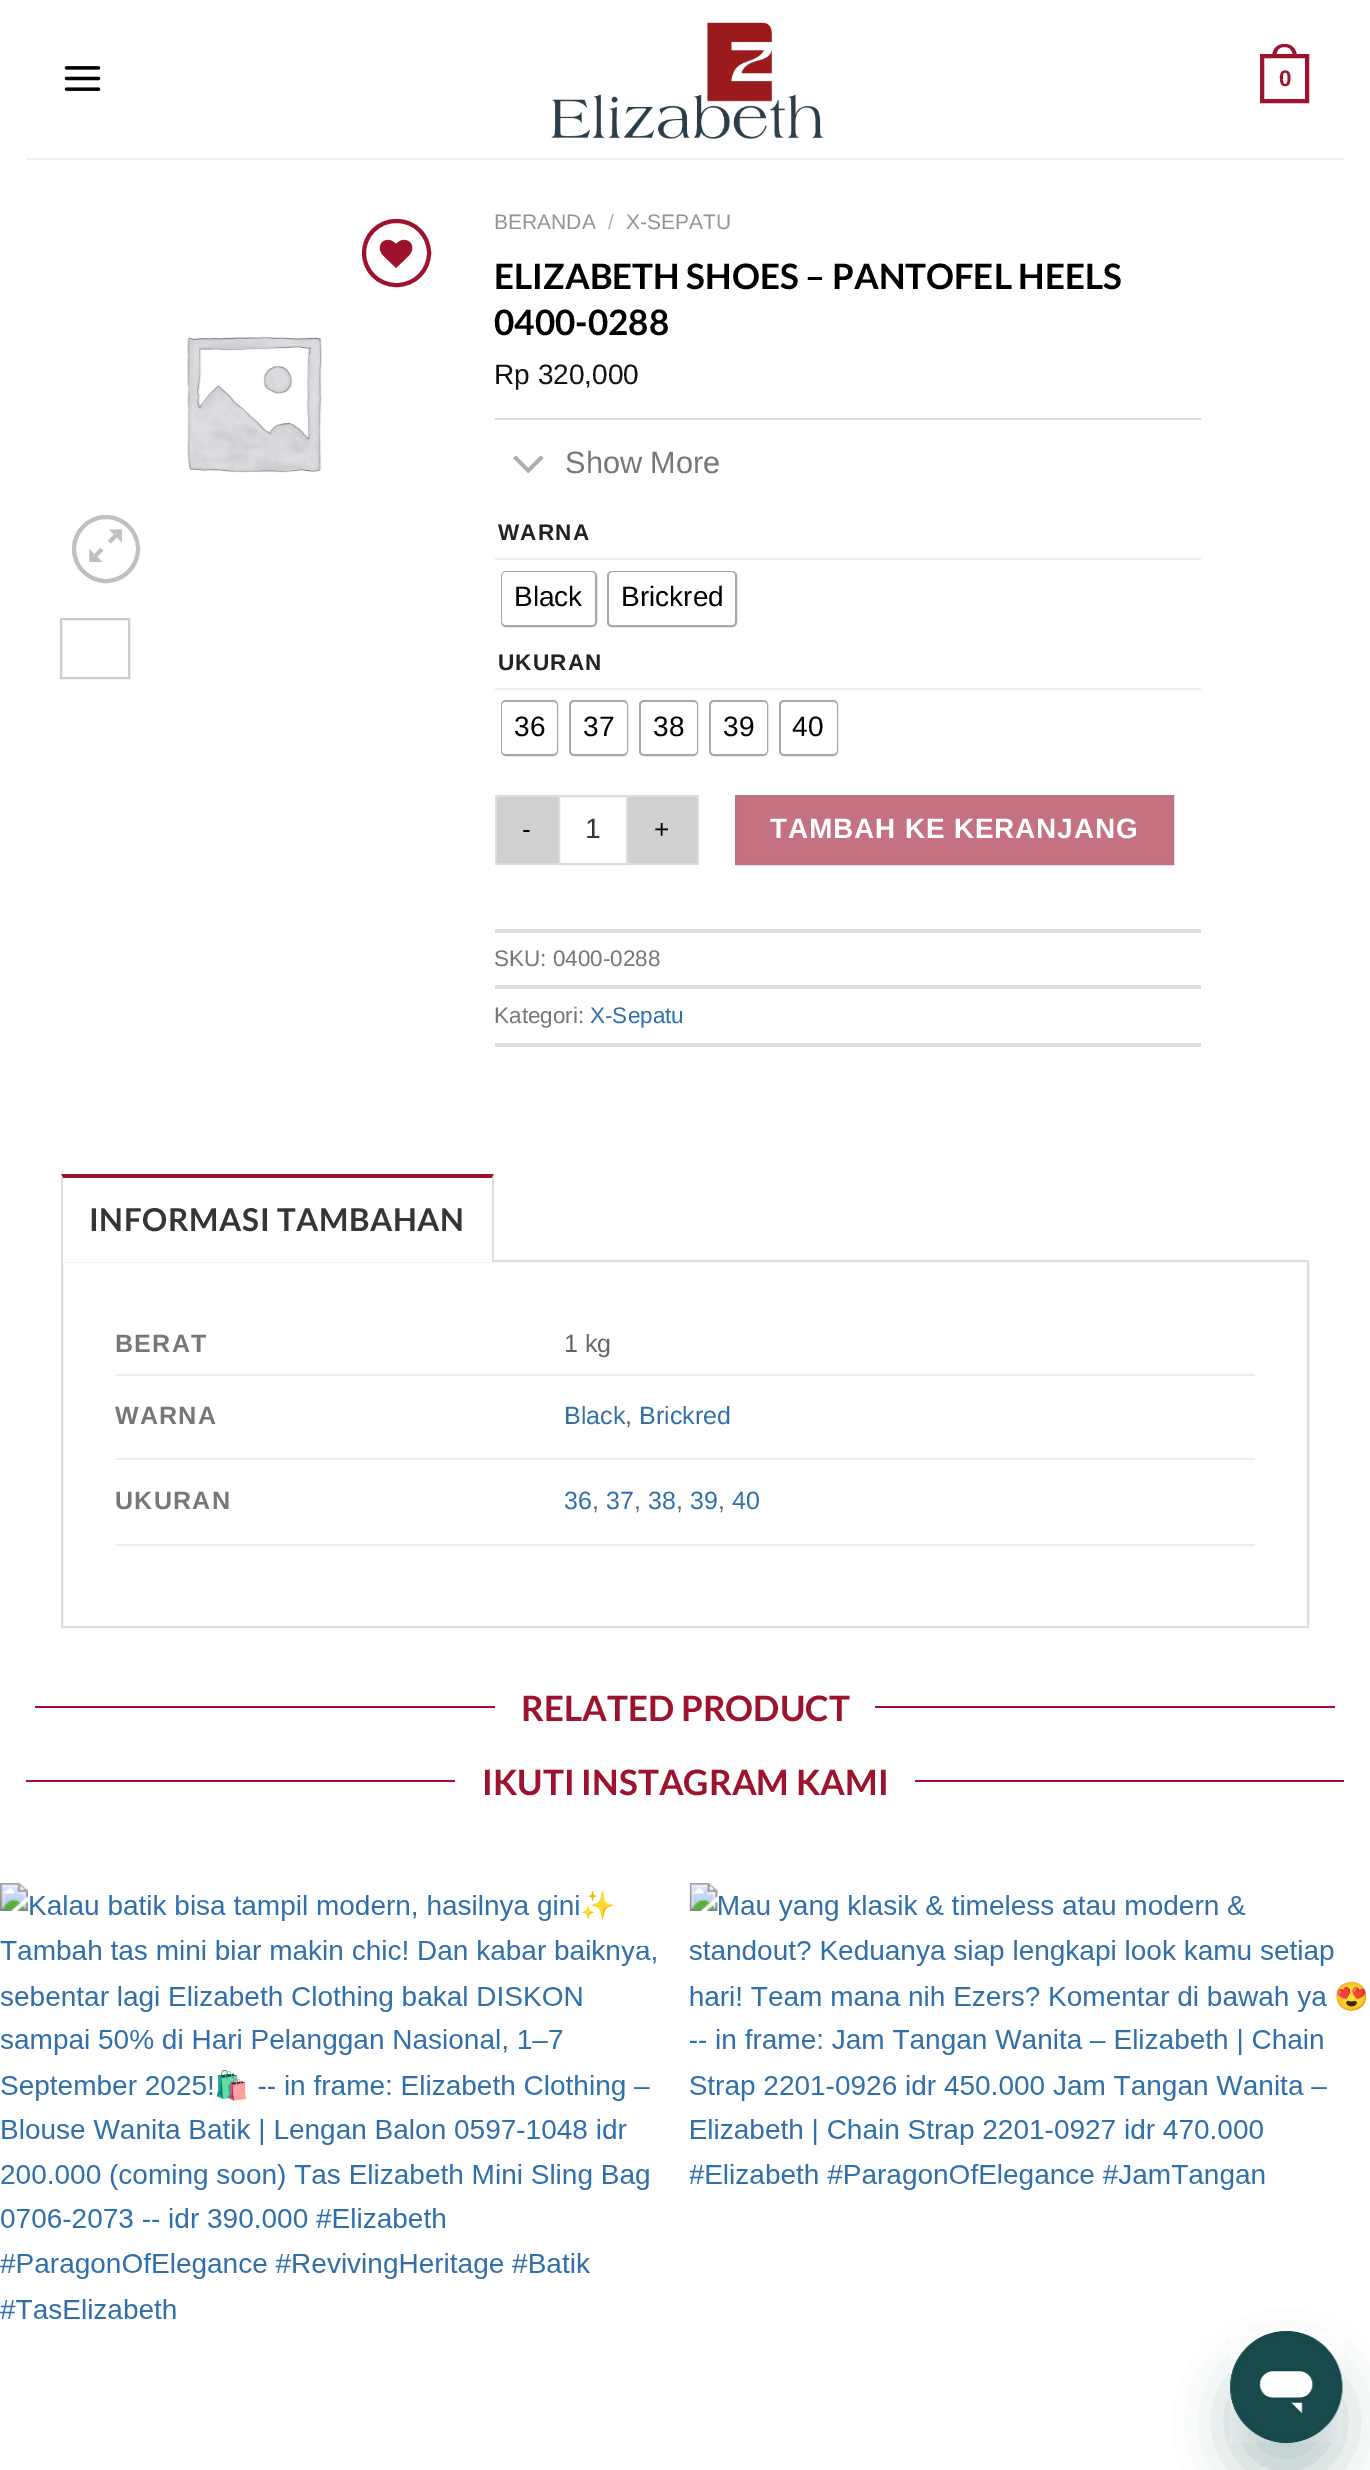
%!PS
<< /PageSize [1370 2470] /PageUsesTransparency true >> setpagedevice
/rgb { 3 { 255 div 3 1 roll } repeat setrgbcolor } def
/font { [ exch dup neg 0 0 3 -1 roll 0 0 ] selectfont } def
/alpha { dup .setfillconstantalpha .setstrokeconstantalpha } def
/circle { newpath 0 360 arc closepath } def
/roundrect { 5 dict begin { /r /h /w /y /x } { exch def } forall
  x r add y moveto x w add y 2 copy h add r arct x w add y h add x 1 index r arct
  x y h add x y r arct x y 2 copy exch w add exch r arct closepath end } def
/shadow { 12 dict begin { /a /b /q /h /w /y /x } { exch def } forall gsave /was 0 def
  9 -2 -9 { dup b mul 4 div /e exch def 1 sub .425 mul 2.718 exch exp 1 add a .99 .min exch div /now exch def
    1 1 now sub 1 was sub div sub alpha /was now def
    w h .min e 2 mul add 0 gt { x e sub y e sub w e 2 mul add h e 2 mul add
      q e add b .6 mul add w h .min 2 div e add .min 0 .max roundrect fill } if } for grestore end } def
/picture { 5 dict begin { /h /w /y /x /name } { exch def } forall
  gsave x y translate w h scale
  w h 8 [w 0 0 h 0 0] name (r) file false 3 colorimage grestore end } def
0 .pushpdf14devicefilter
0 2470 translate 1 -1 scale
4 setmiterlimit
255 255 255 rgb
0 0 1370 2470 rectfill
(img/1.rgb) 64 66 37 25 picture
(img/2.rgb) 551 22 273 117 picture
157 18 45 rgb
4 setlinewidth
1262 56 45 45 rectstroke
1284.5 44 moveto 1293 44 1297 50 1297 58 curveto 1272 58 lineto 1272 50 1276 44 1284.5 44 curveto closepath 1284.5 47 moveto 1291 47 1293 52 1293 58 curveto 1276 58 lineto 1276 52 1278 47 1284.5 47 curveto closepath eofill
241 241 241 rgb
26 158 1318 2 rectfill
157 18 45 rgb
364 221 65 64 32 roundrect stroke
(img/3.rgb) 379 239 34 29 picture
(img/4.rgb) 187 337 135 136 picture
192 192 192 rgb
106 549 32 circle stroke
(img/5.rgb) 89 529 33 34 picture
204 204 204 rgb
2 setlinewidth
61 619 68 59 rectstroke
221 221 221 rgb
495 418 706 2 rectfill
(img/6.rgb) 513 455 31 19 picture
236 236 236 rgb
495 558 706 2 rectfill
168 168 168 rgb
502 572 94 54 4 roundrect stroke
255 255 255 rgb
502 572 93 53 4 roundrect fill
168 168 168 rgb
608 572 128 54 4 roundrect stroke
255 255 255 rgb
609 572 126 53 4 roundrect fill
236 236 236 rgb
495 688 706 2 rectfill
168 168 168 rgb
502 701 55 54 4 roundrect stroke
255 255 255 rgb
502 702 55 52 4 roundrect fill
168 168 168 rgb
570 701 57 54 4 roundrect stroke
255 255 255 rgb
571 702 56 52 4 roundrect fill
168 168 168 rgb
640 701 57 54 4 roundrect stroke
255 255 255 rgb
641 702 56 52 4 roundrect fill
168 168 168 rgb
710 701 57 54 4 roundrect stroke
255 255 255 rgb
711 702 56 52 4 roundrect fill
168 168 168 rgb
780 701 57 54 4 roundrect stroke
255 255 255 rgb
781 702 56 52 4 roundrect fill
[
  [497 797 61 66 208 208 208]
  [495 795 63 2 221 221 221]
  [495 863 63 2 221 221 221]
  [495 795 2 70 221 221 221]
] { aload pop rgb rectfill } forall
559 796 68 68 rectstroke
[
  [628 797 69 66 208 208 208]
  [628 795 70 2 221 221 221]
  [697 795 2 70 221 221 221]
  [628 863 70 2 221 221 221]
] { aload pop rgb rectfill } forall
196 113 129 rgb
736 796 moveto 1173 796 lineto 1173 864 lineto 736 864 lineto closepath gsave fill grestore
191 112 128 rgb
stroke
[
  [495 929 706 4 221 221 221]
  [495 985 706 4 221 221 221]
  [495 1043 706 4 221 221 221]
] { aload pop rgb rectfill } forall
62 1261 1246 366 rectstroke
255 255 255 rgb
61 1260 433 2 rectfill
157 18 45 rgb
61 1174 moveto 494 1174 lineto 492 1178 lineto 63 1178 lineto closepath fill
221 221 221 rgb
494 1174 moveto 494 1262 lineto 492 1262 lineto 492 1178 lineto closepath fill
61 1262 moveto 61 1174 lineto 63 1178 lineto 63 1262 lineto closepath fill
[
  [116 1374 1139 2 236 236 236]
  [116 1458 1139 2 236 236 236]
  [116 1544 1139 2 236 236 236]
  [35 1706 460 2 157 18 45]
  [875 1706 460 2 157 18 45]
  [26 1780 429 2 157 18 45]
  [915 1780 429 2 157 18 45]
] { aload pop rgb rectfill } forall
(img/7.rgb) 0 1883 656 436 picture
(img/8.rgb) 621 1945 26 1 picture
(img/9.rgb) 689 1883 678 307 picture
gsave
996 2182 73 84 rectclip
255 255 255 rgb
1065 2217 moveto 1008 2183 lineto 1003 2181 996 2183 996 2190 curveto 996 2258 lineto 996 2265 1002 2268 1008 2265 curveto 1065 2231 lineto 1071 2228 1071 2221 1065 2217 curveto closepath fill
grestore
23 73 77 rgb
1230 2366 112 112 56 26 0.15 shadow
(img/10.rgb) 1230 2331 113 112 picture
1230 2366 112 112 56 26 0.15 shadow
(img/11.rgb) 1230 2331 113 112 picture
/LiberationSans-Bold 22.5 font
157 18 45 rgb
1279 86 moveto (0) show
/LiberationSans-Regular 21 font
148 148 148 rgb
494 229 moveto (BERANDA) show
178 178 178 rgb
608 229 moveto (/) show
148 148 148 rgb
626 229 moveto (X-SEPATU) show
/Lato-Bold 35 font
0 0 0 rgb
494 289 moveto (ELIZABETH SHOES – PANTOFEL HEELS) show
494 335 moveto (0400-0288) show
/LiberationSans-Regular 28 font
17 17 17 rgb
494 384 moveto (Rp 320,000) show
/LiberationSans-Regular 30.75 font
119 119 119 rgb
565 473 moveto (Show More) show
/LiberationSans-Bold 22.5 font
34 34 34 rgb
498 540 moveto 1.25 0 (WARNA) ashow
/LiberationSans-Regular 28 font
0 0 0 rgb
514 606 moveto (Black) show
621 606 moveto (Brickred) show
/LiberationSans-Bold 22.5 font
34 34 34 rgb
498 670 moveto 1.25 0 (UKURAN) ashow
/LiberationSans-Regular 28 font
0 0 0 rgb
[
  [(36) 514 736]
  [(37) 583 736]
  [(38) 653 736]
  [(39) 723 736]
  [(40) 792 736]
] { aload pop moveto show } forall
/LiberationSans-Regular 26 font
522 838 moveto 1 0 (-) ashow
/LiberationSans-Regular 28 font
53 53 53 rgb
585 838 moveto (1) show
/LiberationSans-Regular 26 font
0 0 0 rgb
654 838 moveto 1 0 (+) ashow
/LiberationSans-Bold 28 font
255 255 255 rgb
770 838 moveto 0.8 0 (TAMBAH KE KERANJANG) ashow
/LiberationSans-Regular 22.5 font
119 119 119 rgb
494 966 moveto (SKU: 0400-0288) show
494 1023 moveto (Kategori:) show
49 111 169 rgb
590 1023 moveto (X-Sepatu) show
/Lato-Bold 31.5 font
53 53 53 rgb
89 1231 moveto 0.6 0 (INFORMASI TAMBAHAN) ashow
/LiberationSans-Bold 25 font
119 119 119 rgb
115 1352 moveto 1.25 0 (BERAT) ashow
/LiberationSans-Regular 25 font
102 102 102 rgb
564 1352 moveto (1 kg) show
/LiberationSans-Bold 25 font
119 119 119 rgb
115 1424 moveto 1.25 0 (WARNA) ashow
/LiberationSans-Regular 25 font
49 111 169 rgb
564 1424 moveto (Black) show
102 102 102 rgb
625 1424 moveto (,) show
49 111 169 rgb
639 1424 moveto (Brickred) show
/LiberationSans-Bold 25 font
119 119 119 rgb
115 1509 moveto 1.25 0 (UKURAN) ashow
/LiberationSans-Regular 25 font
49 111 169 rgb
564 1509 moveto (36) show
102 102 102 rgb
592 1509 moveto (,) show
49 111 169 rgb
606 1509 moveto (37) show
102 102 102 rgb
634 1509 moveto (,) show
49 111 169 rgb
648 1509 moveto (38) show
102 102 102 rgb
676 1509 moveto (,) show
49 111 169 rgb
690 1509 moveto (39) show
102 102 102 rgb
718 1509 moveto (,) show
49 111 169 rgb
732 1509 moveto (40) show
/Lato-Bold 35 font
157 18 45 rgb
521 1721 moveto (RELATED PRODUCT) show
482 1795 moveto (IKUTI INSTAGRAM KAMI) show
.poppdf14devicefilter showpage
